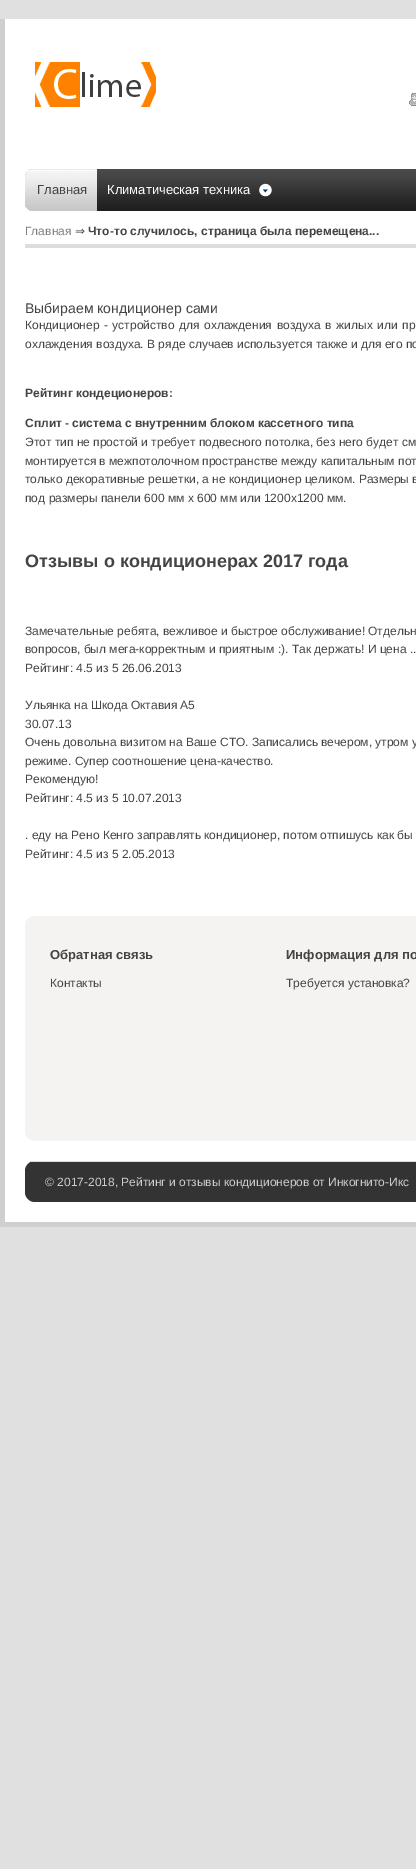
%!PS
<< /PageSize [416 1869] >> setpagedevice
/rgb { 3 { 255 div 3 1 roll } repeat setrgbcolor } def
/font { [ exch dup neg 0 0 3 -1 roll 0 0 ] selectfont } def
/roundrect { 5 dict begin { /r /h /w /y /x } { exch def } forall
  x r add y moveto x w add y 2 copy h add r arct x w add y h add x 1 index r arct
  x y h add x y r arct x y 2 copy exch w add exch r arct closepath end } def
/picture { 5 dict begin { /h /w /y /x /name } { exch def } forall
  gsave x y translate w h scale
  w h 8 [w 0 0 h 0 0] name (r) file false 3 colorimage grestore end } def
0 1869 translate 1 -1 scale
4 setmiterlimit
224 224 224 rgb
0 0 416 1869 rectfill
[
  [5 19 411 1203 255 255 255]
  [0 1222 416 5 207 207 207]
  [0 19 5 1208 207 207 207]
] { aload pop rgb rectfill } forall
(img/1.rgb) 35 62 121 45 picture
(img/2.rgb) 409 93 7 13 picture
(img/3.rgb) 25 169 391 42 picture
239 239 239 rgb
33 169 moveto 97 169 lineto 97 211 lineto 33 211 lineto 28.5 211 25 207.5 25 203 curveto 25 177 lineto 25 172.5 28.5 169 33 169 curveto closepath fill
(img/4.rgb) 25 169 72 42 picture
(img/5.rgb) 259 183 13 14 picture
221 221 221 rgb
25 244 391 4 rectfill
245 243 242 rgb
25 916 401 225 10 roundrect fill
51 51 51 rgb
25 1161 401 41 10 roundrect fill
221 221 221 rgb
30 1161 386 1 rectfill
/LiberationSans-Regular 13 font
68 68 68 rgb
37 194 moveto (Главная) show
255 255 255 rgb
107 194 moveto (Климатическая техника) show
/LiberationSans-Regular 12 font
127 127 127 rgb
25 235 moveto (Главная) show
/DejaVuSans-Regular 12 font
68 68 68 rgb
75 235 moveto (⇒) show
/LiberationSans-Bold 12 font
88 235 moveto (Что-то случилось, страница была перемещена...) show
/LiberationSans-Regular 14 font
25 313 moveto (Выбираем кондиционер сами) show
/LiberationSans-Regular 12 font
25 329 moveto 1.25 0 32 (Кондиционер - устройство для охлаждения воздуха в жилых или пр) widthshow
25 348 moveto (охлаждения воздуха. В ряде случаев используется также и для его по) show
/LiberationSans-Bold 12 font
25 397 moveto (Рейтинг кондеционеров:) show
25 427 moveto (Сплит - система с внутренним блоком кассетного типа) show
/LiberationSans-Regular 12 font
[
  [(Этот тип не простой и требует подвесного потолка, без него будет см) 25 446]
  [(монтируется в межпотолочном пространстве между капитальным пот) 25 465]
  [(только декоративные решетки, а не кондиционер целиком. Размеры в) 25 483]
  [(под размеры панели 600 мм х 600 мм или 1200х1200 мм.) 25 502]
] { aload pop moveto show } forall
/LiberationSans-Bold 18 font
25 567 moveto (Отзывы о кондиционерах 2017 года) show
/LiberationSans-Regular 12 font
[
  [(Замечательные ребята, вежливое и быстрое обслуживание! Отдельн) 25 635]
  [(вопросов, был мега-корректным и приятным :\). Так держать! И цена ..) 25 653]
  [(Рейтинг: 4.5 из 5 26.06.2013) 25 672]
  [(Ульянка на Шкода Октавия А5) 25 709]
  [(30.07.13) 25 728]
  [(Очень довольна визитом на Ваше СТО. Записались вечером, утром у) 25 746]
  [(режиме. Супер соотношение цена-качество.) 25 765]
  [(Рекомендую!) 25 783]
  [(Рейтинг: 4.5 из 5 10.07.2013) 25 802]
  [(. еду на Рено Кенго заправлять кондиционер, потом отпишусь как бы) 25 839]
  [(Рейтинг: 4.5 из 5 2.05.2013) 25 858]
] { aload pop moveto show } forall
/LiberationSans-Bold 13 font
50 959 moveto (Обратная связь) show
/LiberationSans-Regular 12 font
50 987 moveto (Контакты) show
/LiberationSans-Bold 13 font
286 959 moveto (Информация для по) show
/LiberationSans-Regular 12 font
286 987 moveto (Требуется установка?) show
204 204 204 rgb
45 1186 moveto (© 2017-2018, Рейтинг и отзывы кондиционеров от Инкогнито-Икс) show
showpage
